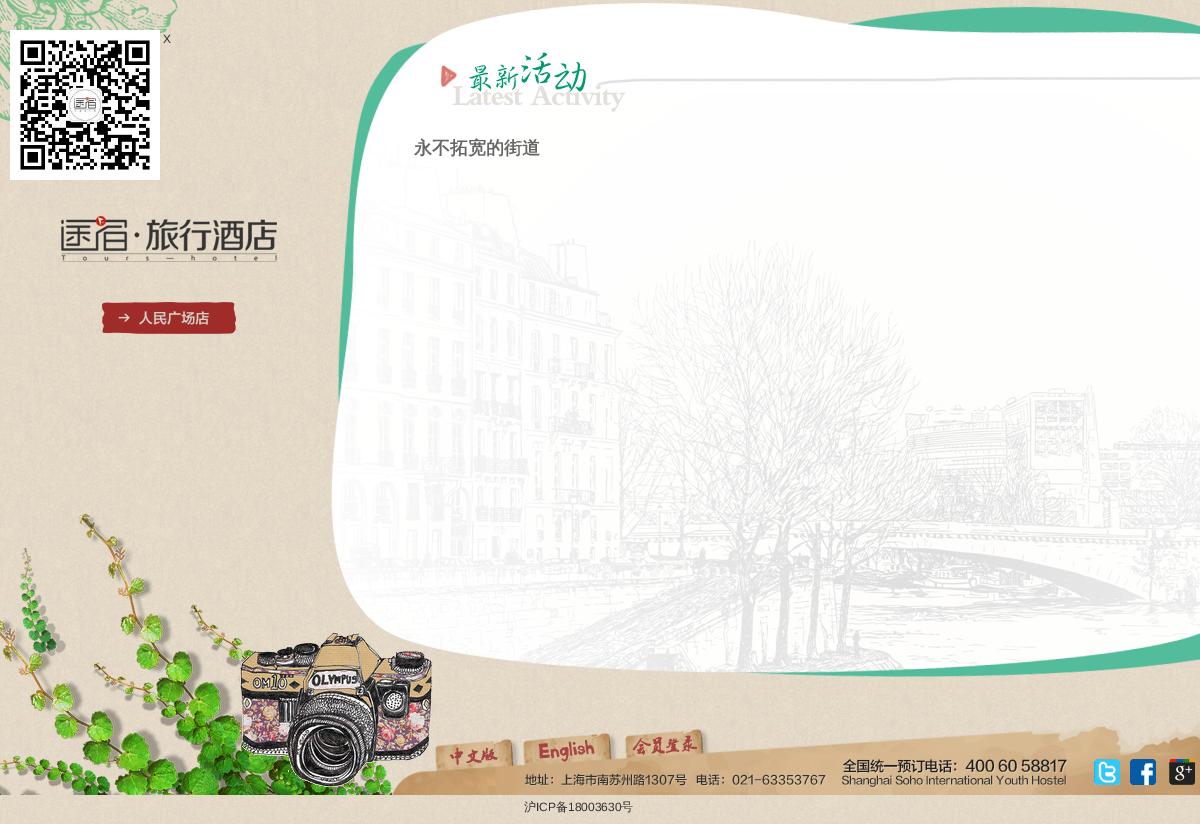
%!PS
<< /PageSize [1200 824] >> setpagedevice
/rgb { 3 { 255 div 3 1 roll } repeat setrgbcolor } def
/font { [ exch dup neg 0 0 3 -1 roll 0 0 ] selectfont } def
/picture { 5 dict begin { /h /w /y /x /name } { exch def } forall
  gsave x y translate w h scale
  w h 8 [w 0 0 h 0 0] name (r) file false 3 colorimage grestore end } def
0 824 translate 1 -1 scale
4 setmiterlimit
255 255 255 rgb
0 0 1200 824 rectfill
(img/1.rgb) 0 795 1200 29 picture
(img/2.rgb) 0 0 1200 795 picture
(img/3.rgb) 0 0 200 135 picture
(img/4.rgb) 10 30 150 150 picture
(img/5.rgb) 331 2 869 676 picture
(img/6.rgb) 439 52 761 60 picture
(img/7.rgb) 61 216 216 46 picture
(img/8.rgb) 102 301 134 33 picture
(img/9.rgb) 0 513 393 282 picture
(img/10.rgb) 238 632 196 155 picture
(img/11.rgb) 392 722 808 73 picture
/LiberationSans-Regular 12 font
51 51 51 rgb
163 43 moveto (X) show
/WenQuanYiZenHei-Bold 18 font
102 102 102 rgb
414 154 moveto (永不拓宽的街道) show
/WenQuanYiZenHei-Medium 12 font
51 51 51 rgb
524 811 moveto (沪) show
/LiberationSans-Regular 12 font
536 811 moveto (ICP) show
/WenQuanYiZenHei-Medium 12 font
556 811 moveto (备) show
/LiberationSans-Regular 12 font
568 811 moveto (18003630) show
/WenQuanYiZenHei-Medium 12 font
621 811 moveto (号) show
showpage
